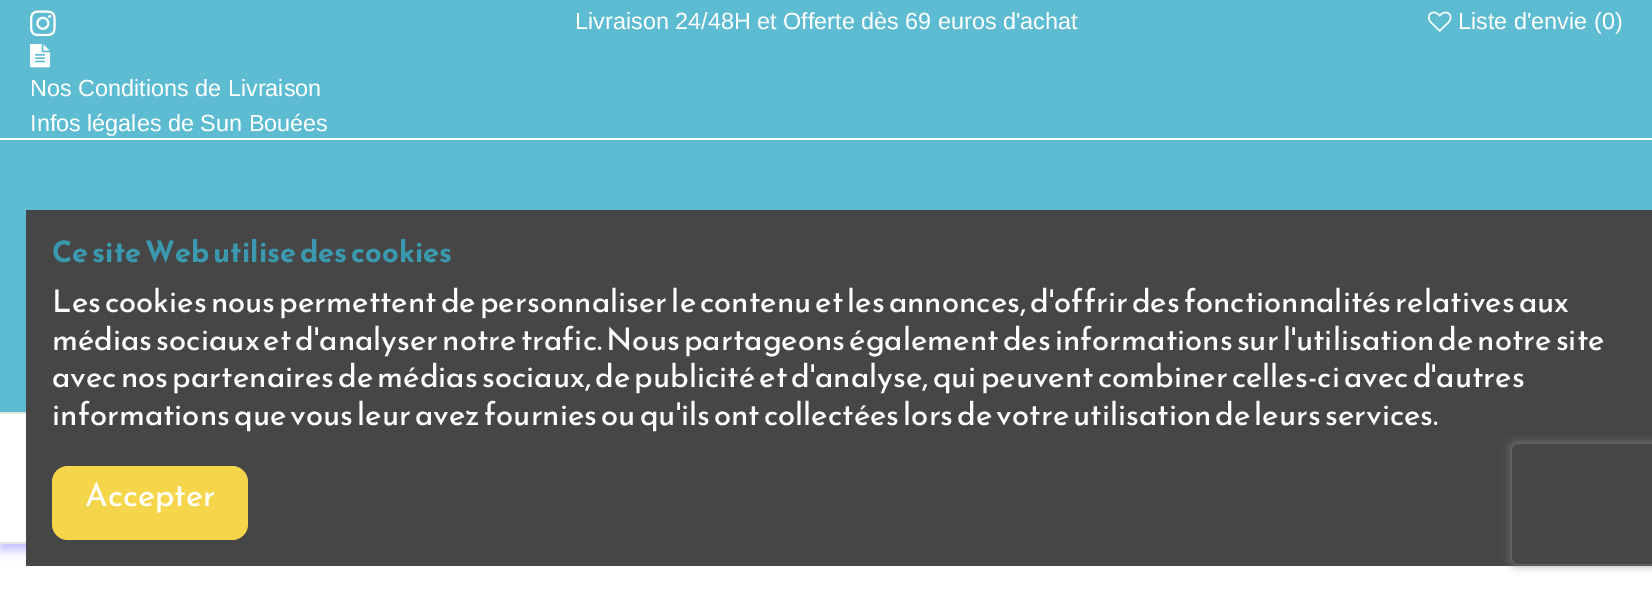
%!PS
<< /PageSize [1652 591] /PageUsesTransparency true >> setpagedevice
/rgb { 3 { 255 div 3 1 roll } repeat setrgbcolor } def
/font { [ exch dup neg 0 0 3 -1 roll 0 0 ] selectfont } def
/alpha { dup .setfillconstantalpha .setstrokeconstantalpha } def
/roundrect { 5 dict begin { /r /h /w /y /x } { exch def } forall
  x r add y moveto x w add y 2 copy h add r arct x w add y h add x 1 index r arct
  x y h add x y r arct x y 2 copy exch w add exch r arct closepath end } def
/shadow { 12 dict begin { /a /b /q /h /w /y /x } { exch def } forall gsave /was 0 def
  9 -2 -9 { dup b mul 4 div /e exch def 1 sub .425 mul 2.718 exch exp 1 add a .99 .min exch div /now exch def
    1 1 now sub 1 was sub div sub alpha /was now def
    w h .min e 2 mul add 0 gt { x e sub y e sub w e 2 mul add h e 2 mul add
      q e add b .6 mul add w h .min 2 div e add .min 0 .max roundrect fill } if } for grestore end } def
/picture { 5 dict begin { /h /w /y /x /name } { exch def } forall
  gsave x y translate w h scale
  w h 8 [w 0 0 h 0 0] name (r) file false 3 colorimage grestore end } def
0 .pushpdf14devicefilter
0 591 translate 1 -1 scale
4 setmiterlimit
255 255 255 rgb
0 0 1652 591 rectfill
12 0 255 rgb
0 6 1652 544 0 5 0.25 shadow
93 188 210 rgb
0 0 1652 138 rectfill
255 255 255 rgb
0 138 1652 2 rectfill
(img/1.rgb) 1428 11 24 21 picture
(img/2.rgb) 30 10 26 27 picture
(img/3.rgb) 30 43 21 25 picture
93 188 210 rgb
0 140 1652 272 rectfill
255 255 255 rgb
0 414 26 130 rectfill
229 229 229 rgb
0 412 moveto 414 412 lineto 412 414 lineto 0 414 lineto closepath fill
0.11 alpha
21 21 21 rgb
414 544 moveto 0 544 lineto 0 542 lineto 412 542 lineto closepath fill
1 alpha
70 70 70 rgb
26 210 1626 356 rectfill
gsave
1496 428 moveto 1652 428 lineto 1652 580 lineto 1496 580 lineto closepath 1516 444 moveto 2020 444 lineto 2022 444 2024 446 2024 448 curveto 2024 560 lineto 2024 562 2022 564 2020 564 curveto 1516 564 lineto 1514 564 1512 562 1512 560 curveto 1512 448 lineto 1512 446 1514 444 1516 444 curveto closepath eoclip newpath
128 128 128 rgb
1512 444 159 120 4 5 1 shadow
grestore
245 214 74 rgb
52 466 196 74 16 roundrect fill
/LiberationSans-Regular 23.4 font
255 255 255 rgb
[
  [(Livraison 24/48H et Offerte dès 69 euros d'achat) 575 29]
  [(Liste d'envie \(0\)) 1458 29]
  [(Nos Conditions de Livraison) 30 96]
  [(Infos légales de Sun Bouées) 30 131]
] { aload pop moveto show } forall
/ReemKufi-Bold 29.25 font
59 153 175 rgb
52 262 moveto (Ce site Web utilise des cookies) show
/ReemKufi-Regular 31.2 font
255 255 255 rgb
[
  [(Les cookies nous permettent de personnaliser le contenu et les annonces, d'offrir des fonctionnalités relatives aux) 52 312]
  [(médias sociaux et d'analyser notre trafic. Nous partageons également des informations sur l'utilisation de notre site) 52 350]
  [(avec nos partenaires de médias sociaux, de publicité et d'analyse, qui peuvent combiner celles-ci avec d'autres) 52 387]
  [(informations que vous leur avez fournies ou qu'ils ont collectées lors de votre utilisation de leurs services.) 52 425]
] { aload pop moveto show } forall
/ReemKufi-Regular 32.5 font
85 506 moveto (Accepter) show
.poppdf14devicefilter showpage
